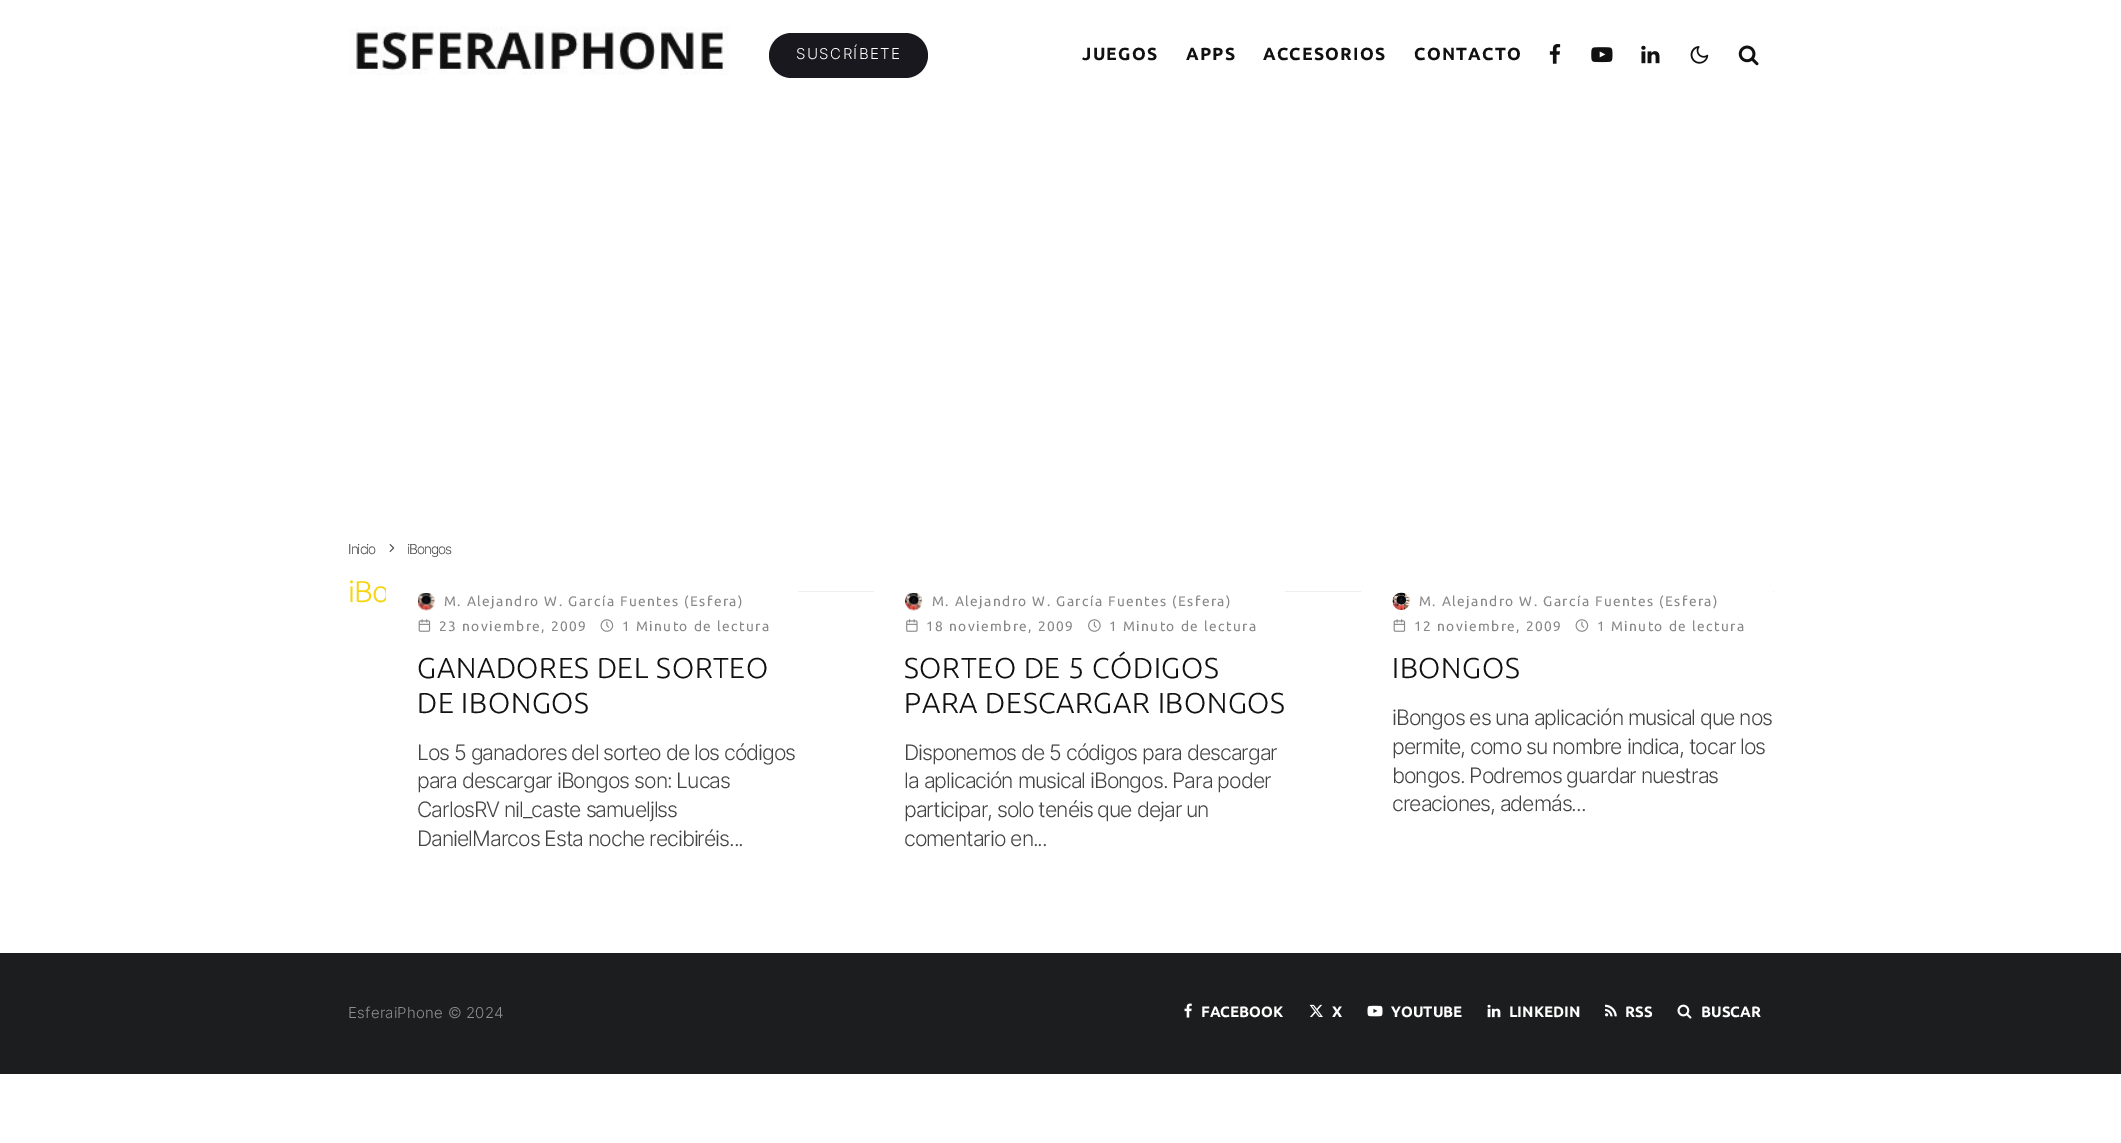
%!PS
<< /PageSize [2121 1143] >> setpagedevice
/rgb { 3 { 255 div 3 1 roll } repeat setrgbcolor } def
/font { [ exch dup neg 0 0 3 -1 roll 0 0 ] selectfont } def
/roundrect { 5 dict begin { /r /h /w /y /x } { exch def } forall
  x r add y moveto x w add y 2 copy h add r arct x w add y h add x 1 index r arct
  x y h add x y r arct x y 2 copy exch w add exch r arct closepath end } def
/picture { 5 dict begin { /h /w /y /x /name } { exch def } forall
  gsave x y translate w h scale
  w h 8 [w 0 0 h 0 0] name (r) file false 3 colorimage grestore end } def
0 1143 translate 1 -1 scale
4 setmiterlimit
255 255 255 rgb
0 0 2121 1143 rectfill
(img/1.rgb) 349 26 380 49 picture
24 24 30 rgb
769 33 159 45 22.5 roundrect fill
(img/2.rgb) 1549 44 12 20 picture
(img/3.rgb) 1591 47 22 16 picture
(img/4.rgb) 1641 45 19 19 picture
(img/5.rgb) 1690 46 19 18 picture
(img/6.rgb) 1738 45 21 21 picture
(img/7.rgb) 389 544 6 8 picture
238 238 238 rgb
798 591 976 1 rectfill
(img/8.rgb) 418 593 18 18 picture
(img/9.rgb) 418 619 13 13 picture
(img/10.rgb) 600 619 14 13 picture
255 255 255 rgb
874 591 411 1 rectfill
(img/11.rgb) 905 593 18 18 picture
(img/12.rgb) 906 619 12 13 picture
(img/13.rgb) 1088 619 13 13 picture
1361 591 412 1 rectfill
(img/14.rgb) 1392 592 18 18 picture
(img/9.rgb) 1393 619 13 13 picture
(img/10.rgb) 1575 619 14 13 picture
28 29 30 rgb
0 953 2121 121 rectfill
(img/15.rgb) 1184 1003 8 15 picture
(img/16.rgb) 1309 1004 14 13 picture
(img/17.rgb) 1367 1005 16 12 picture
(img/18.rgb) 1487 1004 14 14 picture
(img/19.rgb) 1605 1004 12 13 picture
(img/20.rgb) 1677 1004 15 15 picture
/Inter-Light 15 font
255 255 255 rgb
796 59 moveto 1.4 0 (SUSCRÍBETE) ashow
/Ubuntu-Bold 17.5 font
17 17 17 rgb
1082 60 moveto 1.25 0 (JUEGOS) ashow
1186 60 moveto 1.25 0 (APPS) ashow
1263 60 moveto 1.25 0 (ACCESORIOS) ashow
1414 60 moveto 1.25 0 (CONTACTO) ashow
/Inter-Light 13.75 font
68 68 68 rgb
348 554 moveto -1.05 0 (Inicio) ashow
407 554 moveto -1.05 0 (iBongos) ashow
/Ubuntu-Light 30 font
247 212 14 rgb
348 602 moveto -1.05 0 (iBo) ashow
255 255 255 rgb
386 588 2 12 rectfill
/Ubuntu-Regular 13.75 font
136 136 136 rgb
444 606 moveto 1.4 0 (M. Alejandro W. García Fuentes \(Esfera\)) ashow
439 631 moveto 1.4 0 (23 noviembre, 2009) ashow
622 631 moveto 1.4 0 (1 Minuto de lectura) ashow
/Ubuntu-Light 28.75 font
17 17 17 rgb
417 678 moveto 0.6 0 (GANADORES DEL SORTEO) ashow
417 713 moveto 0.6 0 (DE IBONGOS) ashow
/Inter-Light 21.25 font
68 68 68 rgb
417 760 moveto -1.05 0 (Los 5 ganadores del sorteo de los códigos) ashow
417 788 moveto -1.05 0 (para descargar iBongos son: Lucas) ashow
417 817 moveto -1.05 0 (CarlosRV nil_caste samueljlss) ashow
417 846 moveto -1.05 0 (DanielMarcos Esta noche recibiréis...) ashow
/Ubuntu-Regular 13.75 font
136 136 136 rgb
932 606 moveto 1.4 0 (M. Alejandro W. García Fuentes \(Esfera\)) ashow
926 631 moveto 1.4 0 (18 noviembre, 2009) ashow
1109 631 moveto 1.4 0 (1 Minuto de lectura) ashow
/Ubuntu-Light 28.75 font
17 17 17 rgb
904 678 moveto 0.6 0 (SORTEO DE 5 CÓDIGOS) ashow
904 713 moveto 0.6 0 (PARA DESCARGAR IBONGOS) ashow
/Inter-Light 21.25 font
68 68 68 rgb
904 760 moveto -1.05 0 (Disponemos de 5 códigos para descargar) ashow
904 788 moveto -1.05 0 (la aplicación musical iBongos. Para poder) ashow
904 817 moveto -1.05 0 (participar, solo tenéis que dejar un) ashow
904 846 moveto -1.05 0 (comentario en...) ashow
/Ubuntu-Regular 13.75 font
136 136 136 rgb
1419 606 moveto 1.4 0 (M. Alejandro W. García Fuentes \(Esfera\)) ashow
1414 631 moveto 1.4 0 (12 noviembre, 2009) ashow
1597 631 moveto 1.4 0 (1 Minuto de lectura) ashow
/Ubuntu-Light 28.75 font
17 17 17 rgb
1392 678 moveto 0.6 0 (IBONGOS) ashow
/Inter-Light 21.25 font
68 68 68 rgb
1392 725 moveto -1.05 0 (iBongos es una aplicación musical que nos) ashow
1392 754 moveto -1.05 0 (permite, como su nombre indica, tocar los) ashow
1392 783 moveto -1.05 0 (bongos. Podremos guardar nuestras) ashow
1392 811 moveto -1.05 0 (creaciones, además...) ashow
/Inter-Light 15 font
142 142 142 rgb
348 1018 moveto 0.25 0 (EsferaiPhone © 2024) ashow
/Ubuntu-Bold 15 font
255 255 255 rgb
[
  [(FACEBOOK) 1201 1017]
  [(X) 1332 1017]
  [(YOUTUBE) 1391 1017]
  [(LINKEDIN) 1509 1017]
  [(RSS) 1625 1017]
  [(BUSCAR) 1701 1017]
] { aload pop moveto show } forall
showpage
